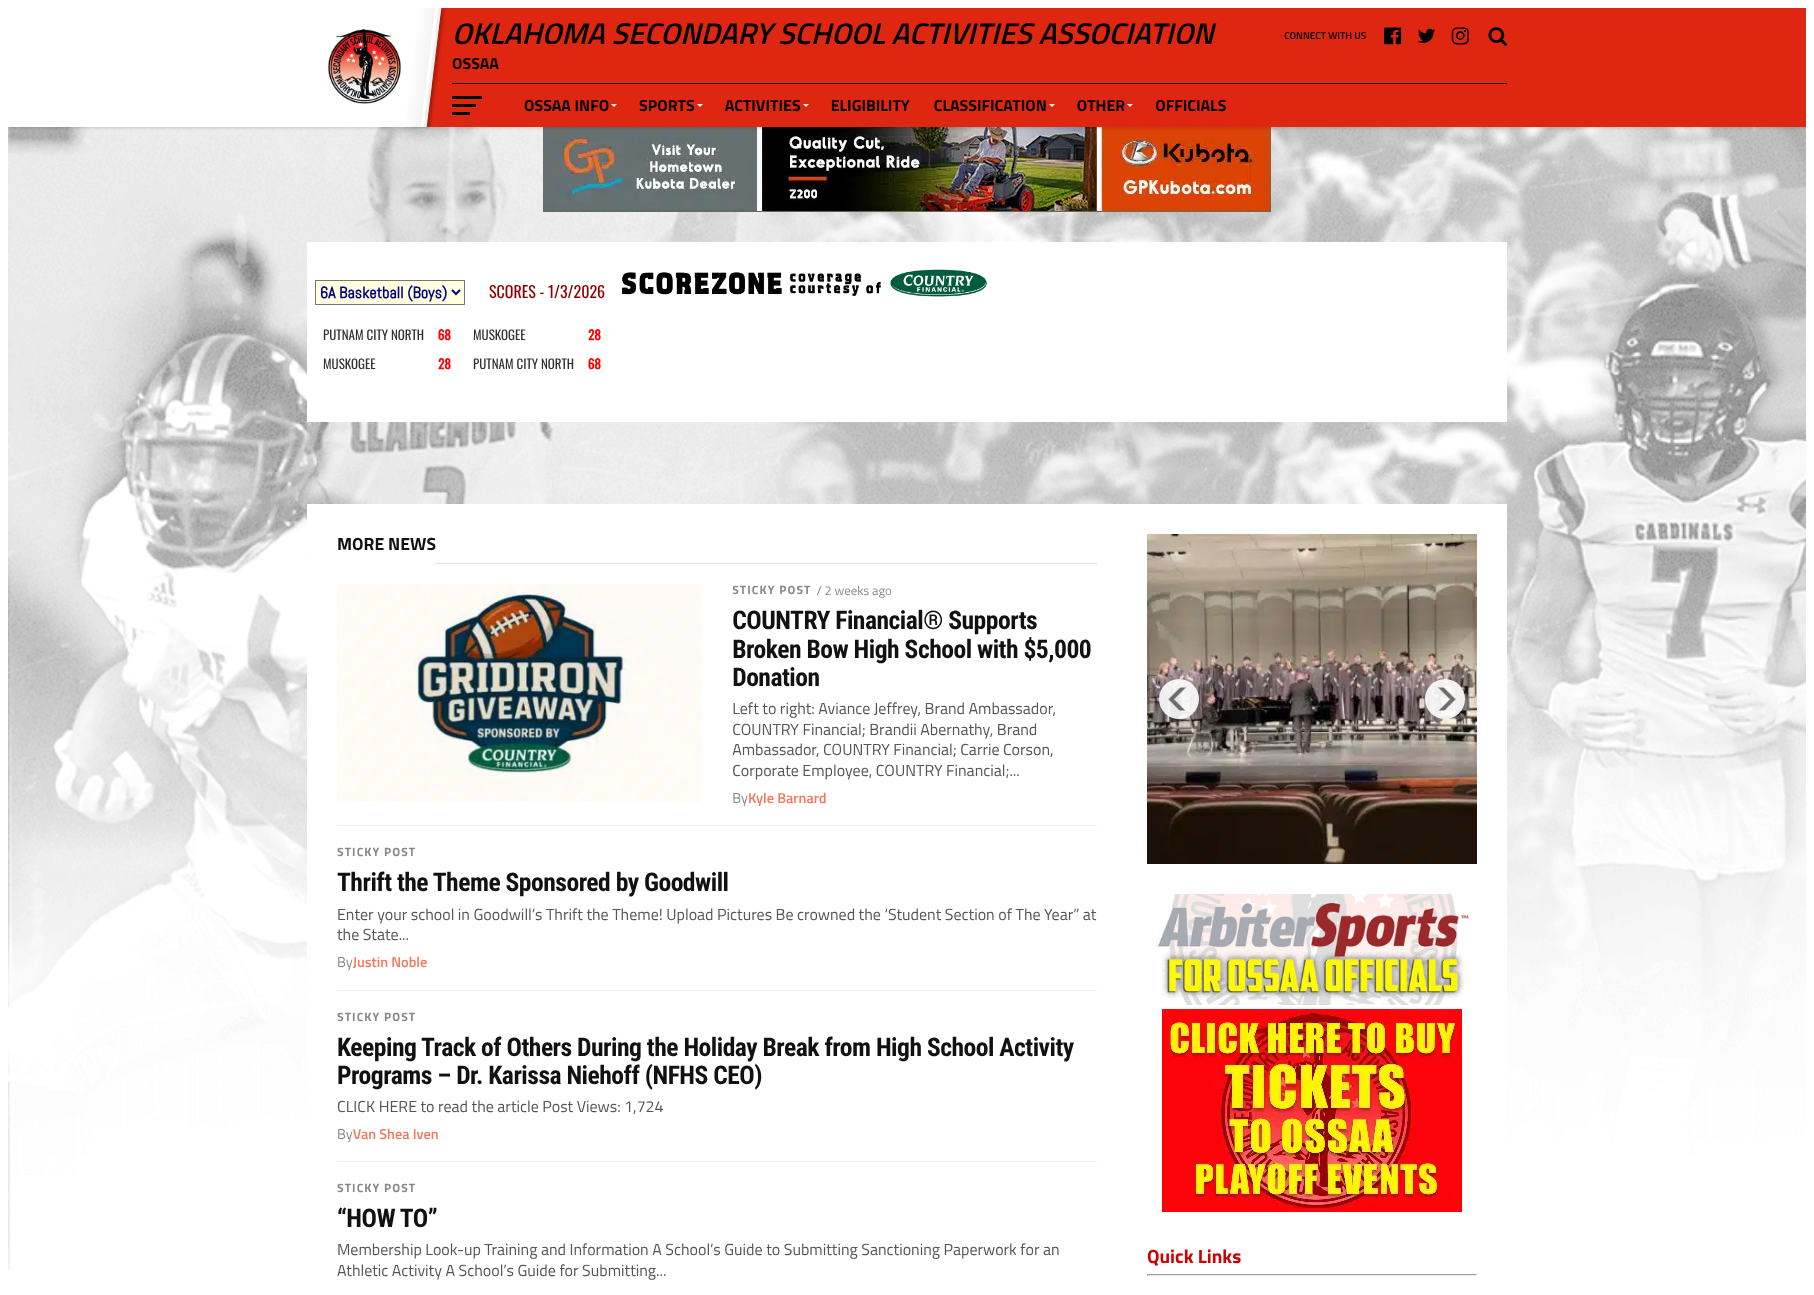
%!PS
<< /PageSize [1814 1295] >> setpagedevice
/rgb { 3 { 255 div 3 1 roll } repeat setrgbcolor } def
/picture { 5 dict begin { /h /w /y /x /name } { exch def } forall
  gsave x y translate w h scale
  w h 8 [w 0 0 h 0 0] name (r) file false 3 colorimage grestore end } def
0 1295 translate 1 -1 scale
4 setmiterlimit
255 255 255 rgb
0 0 1814 1295 rectfill
(img/1.rgb) 8 8 1798 1272 picture
showpage
